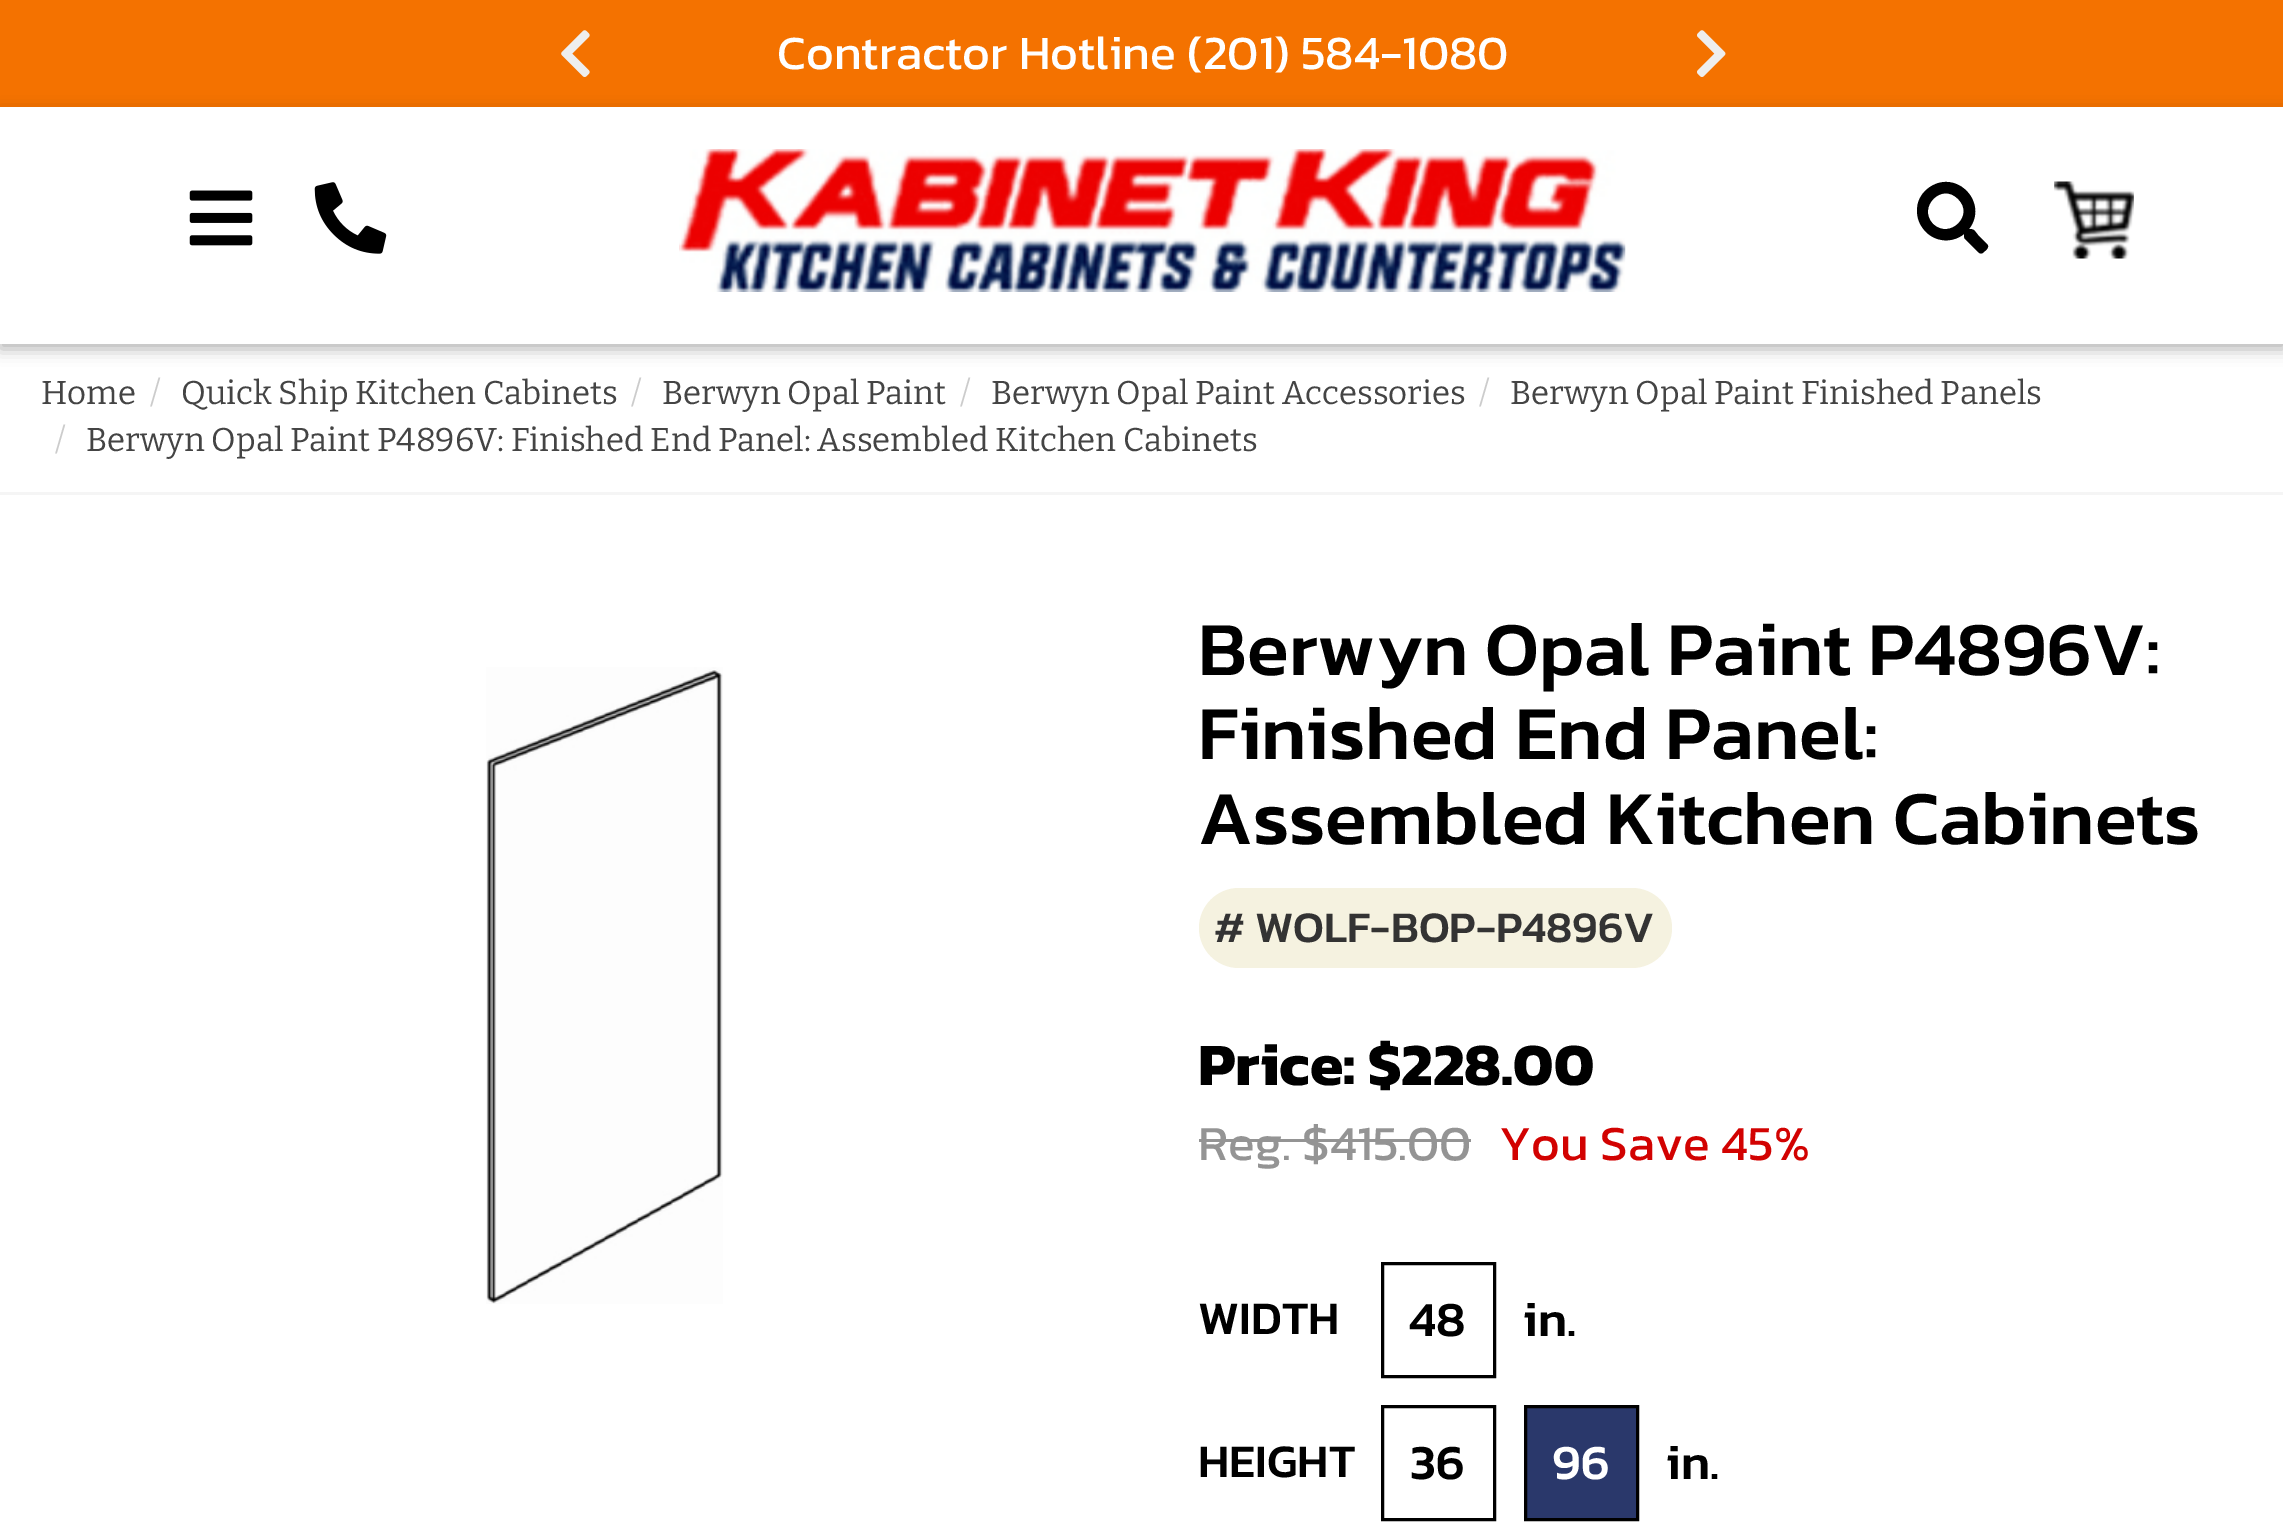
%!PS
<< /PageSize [2283 1538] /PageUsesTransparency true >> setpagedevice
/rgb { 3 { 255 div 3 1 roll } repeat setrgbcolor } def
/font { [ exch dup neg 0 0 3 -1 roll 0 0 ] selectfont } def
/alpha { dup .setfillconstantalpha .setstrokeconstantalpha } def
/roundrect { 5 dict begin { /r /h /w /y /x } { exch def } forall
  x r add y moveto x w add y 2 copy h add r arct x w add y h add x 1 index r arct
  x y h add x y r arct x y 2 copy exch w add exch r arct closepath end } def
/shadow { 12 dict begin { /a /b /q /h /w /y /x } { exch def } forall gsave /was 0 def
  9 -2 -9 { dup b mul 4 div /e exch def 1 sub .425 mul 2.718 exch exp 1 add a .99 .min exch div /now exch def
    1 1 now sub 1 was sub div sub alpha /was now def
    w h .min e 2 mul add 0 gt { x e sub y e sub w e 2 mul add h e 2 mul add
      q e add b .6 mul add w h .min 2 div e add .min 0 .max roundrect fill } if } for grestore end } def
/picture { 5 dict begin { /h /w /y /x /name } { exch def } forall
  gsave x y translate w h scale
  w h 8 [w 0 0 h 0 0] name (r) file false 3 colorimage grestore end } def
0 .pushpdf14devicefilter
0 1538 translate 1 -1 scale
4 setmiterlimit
255 255 255 rgb
0 0 2283 1538 rectfill
244 114 0 rgb
0 0 2283 107 rectfill
(img/1.rgb) 561 30 29 47 picture
(img/2.rgb) 1697 30 29 47 picture
0 0 0 rgb
0 113 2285 236 0 8 0.3 shadow
255 255 255 rgb
0 107 2283 237 rectfill
(img/3.rgb) 189 190 64 56 picture
(img/4.rgb) 314 182 73 72 picture
(img/5.rgb) 679 149 947 143 picture
0 0 0 rgb
1987 244 moveto 1990 247 1986 250 1985 251 curveto 1981 255 1980 254 1976 250 curveto 1967 241 lineto 1964 238 1964 238 1964 234 curveto 1950 245 1931 241 1922 227 curveto 1917 220 1916 211 1918 203 curveto 1920 196 1924 191 1930 187 curveto 1957 169 1989 203 1969 229 curveto 1974 229 1974 230 1978 235 curveto closepath 1933 224 moveto 1950 240 1975 215 1958 199 curveto 1942 182 1917 207 1933 224 curveto closepath fill
(img/6.rgb) 2054 181 80 78 picture
245 245 245 rgb
0 492 2283 3 rectfill
(img/7.rgb) 486 667 237 637 picture
245 242 224 rgb
1199 888 473 80 40 roundrect fill
148 148 148 rgb
1199 1139 272 3 rectfill
0 0 0 rgb
3 setlinewidth
1382.5 1263.5 112 113 rectstroke
1382.5 1406.5 112 113 rectstroke
42 56 107 rgb
1525.5 1406.5 moveto 1637.5 1406.5 lineto 1637.5 1519.5 lineto 1525.5 1519.5 lineto closepath gsave fill grestore
0 0 0 rgb
stroke
/Kanit-Regular 48.1 font
255 255 255 rgb
777 69 moveto (Contractor Hotline \(201\) 584-1080) show
/Bitter-Thin 33 font
68 68 68 rgb
41 404 moveto (Home) show
204 204 204 rgb
150 404 moveto (/) show
68 68 68 rgb
181 404 moveto (Quick Ship Kitchen Cabinets) show
204 204 204 rgb
631 404 moveto (/) show
68 68 68 rgb
662 404 moveto (Berwyn Opal Paint) show
204 204 204 rgb
960 404 moveto (/) show
68 68 68 rgb
991 404 moveto (Berwyn Opal Paint Accessories) show
204 204 204 rgb
1479 404 moveto (/) show
68 68 68 rgb
1510 404 moveto (Berwyn Opal Paint Finished Panels) show
204 204 204 rgb
55 451 moveto (/) show
68 68 68 rgb
86 451 moveto (Berwyn Opal Paint P4896V: Finished End Panel: Assembled Kitchen Cabinets) show
/Kanit-Medium 77 font
0 0 0 rgb
[
  [(Berwyn Opal Paint P4896V:) 1198 675]
  [(Finished End Panel:) 1198 759]
  [(Assembled Kitchen Cabinets) 1198 844]
] { aload pop moveto show } forall
/Kanit-Medium 44 font
51 51 51 rgb
1214 942 moveto (# WOLF-BOP-P4896V) show
/Kanit-Bold 60.5 font
0 0 0 rgb
1198 1085 moveto (Price: $228.00) show
/Kanit-Regular 49.5 font
148 148 148 rgb
1198 1160 moveto (Reg. $415.00) show
210 2 1 rgb
1499 1160 moveto (You Save 45%) show
/Kanit-Medium 47 font
0 0 0 rgb
1198 1334 moveto (WIDTH) show
/Kanit-Medium 49.5 font
1409 1336 moveto (48) show
1523 1336 moveto (in.) show
/Kanit-Medium 47 font
1198 1477 moveto (HEIGHT) show
/Kanit-Medium 49.5 font
1410 1479 moveto (36) show
255 255 255 rgb
1552 1479 moveto (96) show
0 0 0 rgb
1666 1479 moveto (in.) show
.poppdf14devicefilter showpage
